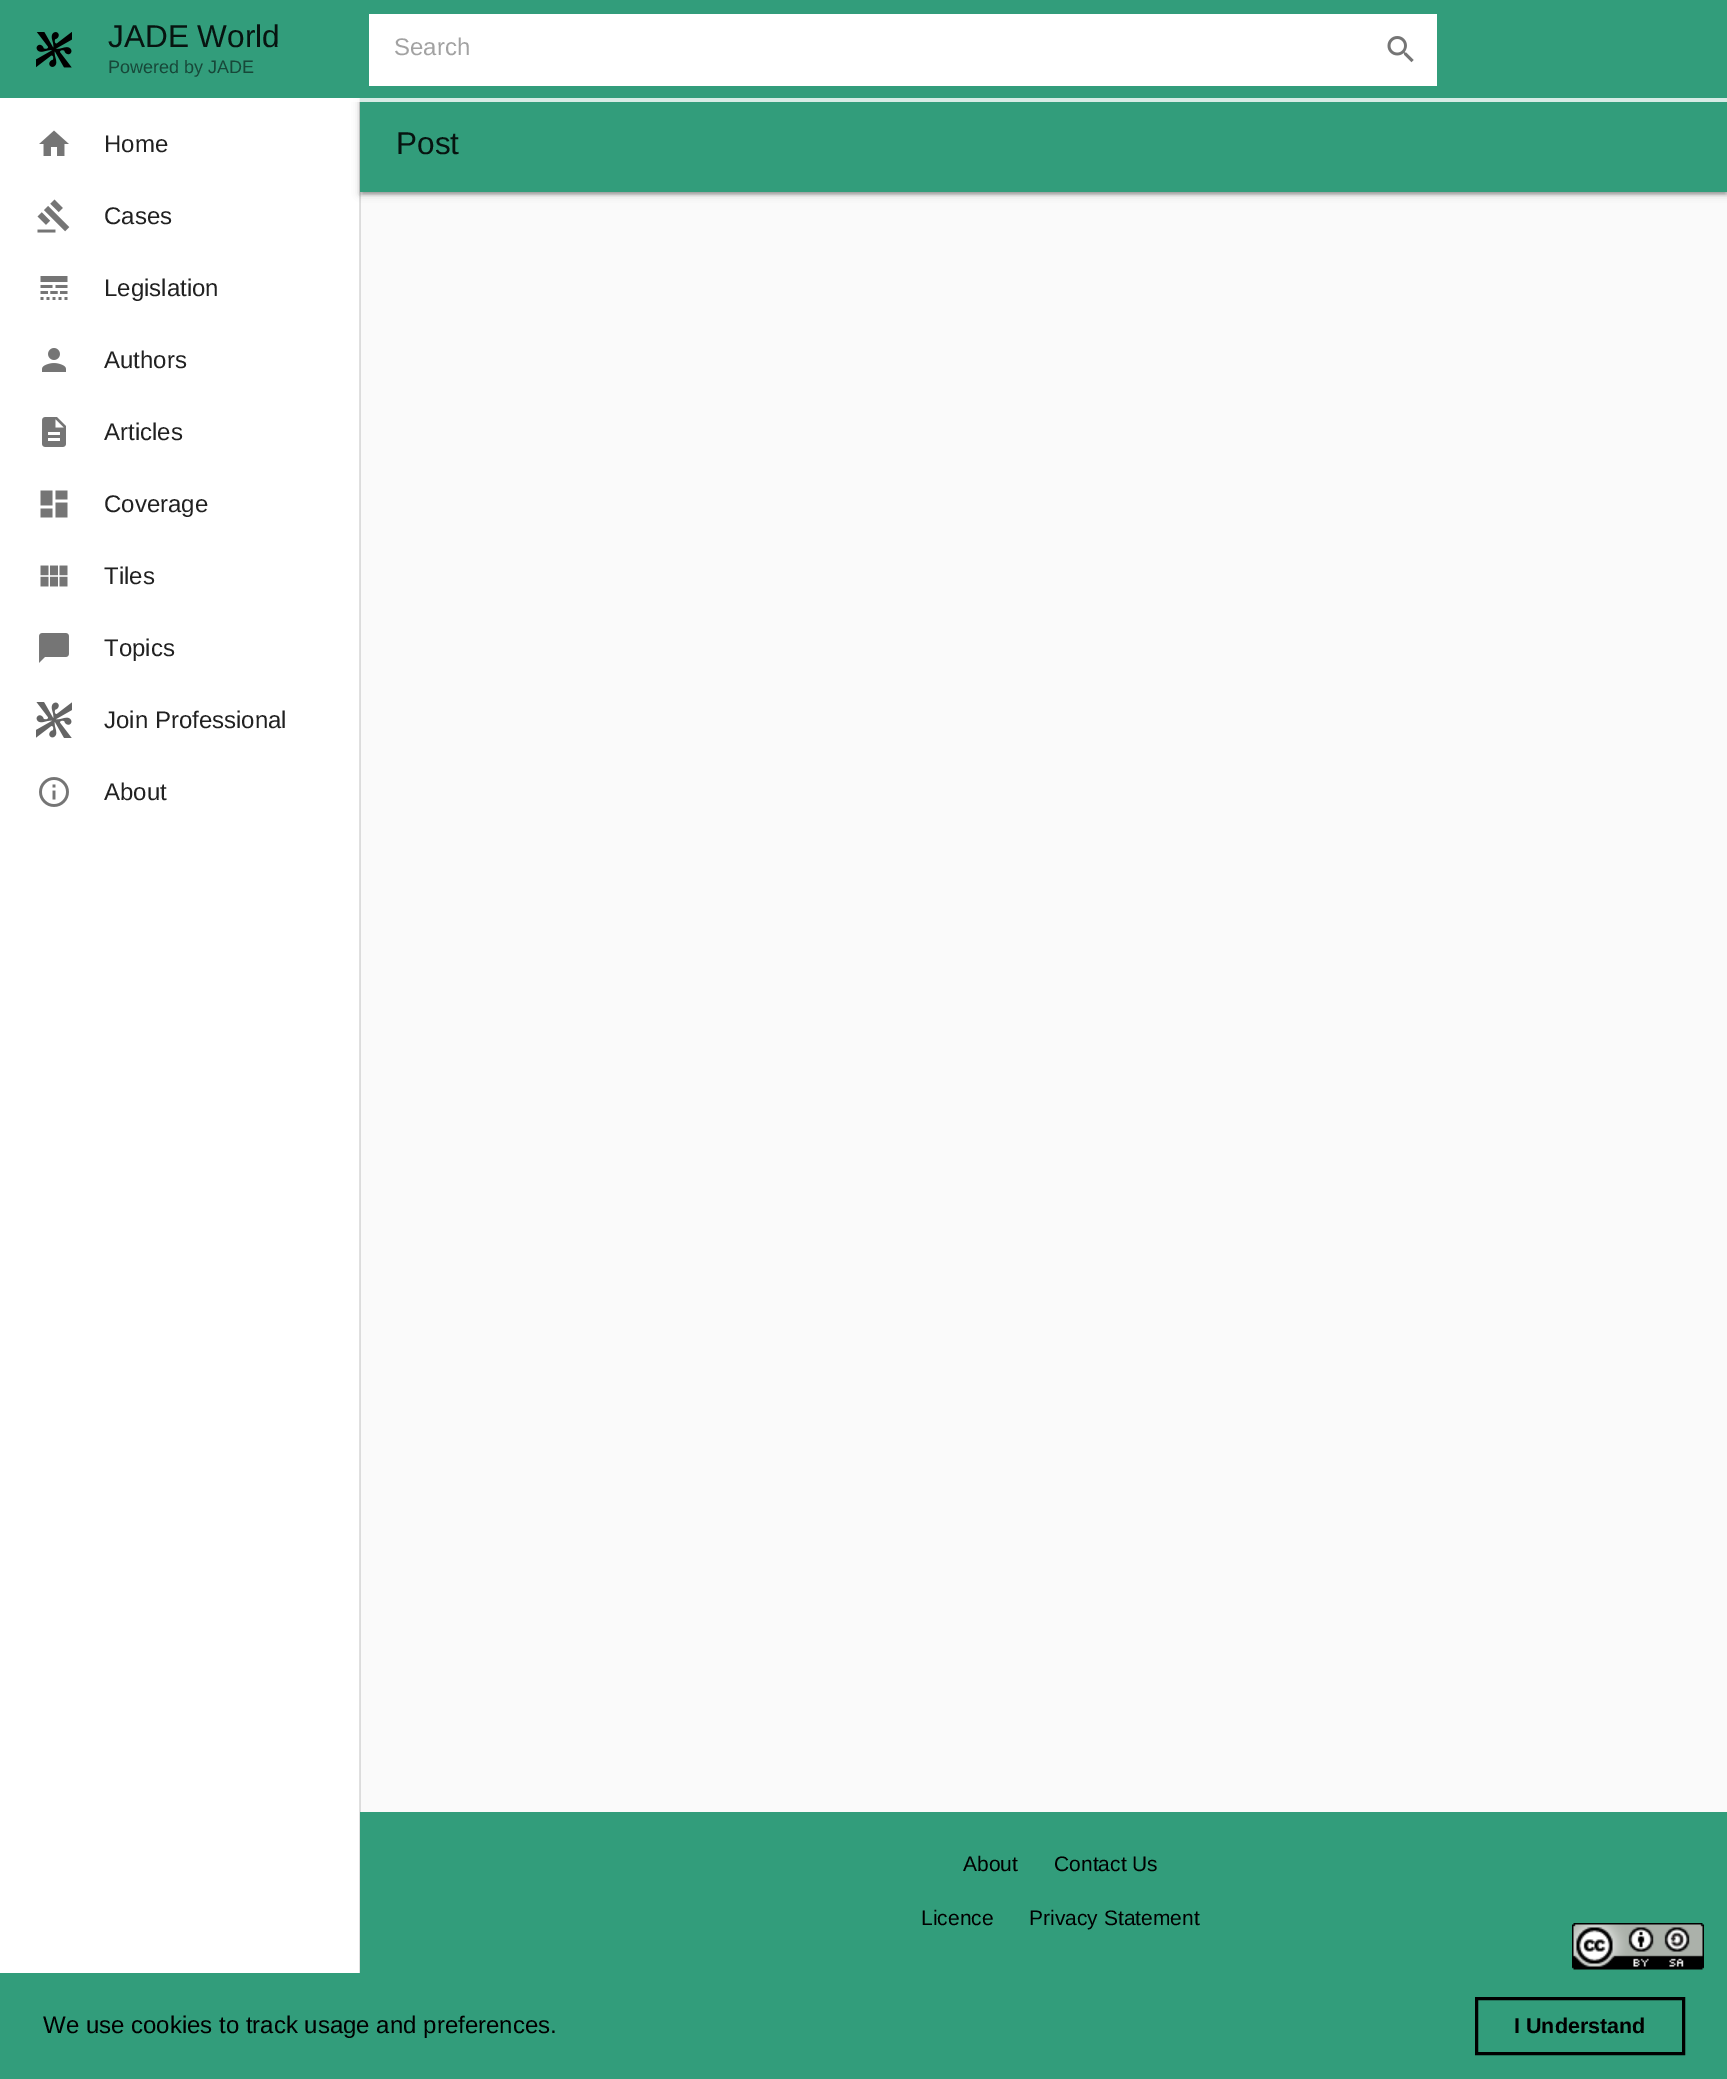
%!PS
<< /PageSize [1727 2079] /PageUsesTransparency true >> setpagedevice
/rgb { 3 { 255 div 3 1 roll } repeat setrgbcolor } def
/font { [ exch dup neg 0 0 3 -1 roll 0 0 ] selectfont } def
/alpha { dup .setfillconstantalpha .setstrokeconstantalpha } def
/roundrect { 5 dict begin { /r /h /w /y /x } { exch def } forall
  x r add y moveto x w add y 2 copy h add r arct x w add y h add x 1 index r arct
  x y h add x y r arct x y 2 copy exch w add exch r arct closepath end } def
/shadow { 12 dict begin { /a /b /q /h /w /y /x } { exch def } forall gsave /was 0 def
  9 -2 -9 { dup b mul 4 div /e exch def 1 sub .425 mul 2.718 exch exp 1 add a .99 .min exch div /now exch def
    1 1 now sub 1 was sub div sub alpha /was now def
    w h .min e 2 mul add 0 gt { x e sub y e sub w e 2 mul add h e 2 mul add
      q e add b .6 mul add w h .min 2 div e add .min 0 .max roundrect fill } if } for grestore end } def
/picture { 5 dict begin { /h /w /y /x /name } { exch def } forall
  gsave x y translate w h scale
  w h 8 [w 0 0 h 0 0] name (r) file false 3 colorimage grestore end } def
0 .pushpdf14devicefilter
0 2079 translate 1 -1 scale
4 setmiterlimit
250 250 250 rgb
0 0 1727 2079 rectfill
[
  [360 192 1 1620 220 220 220]
  [0 98 359 1875 255 255 255]
  [359 96 1 1877 224 224 224]
] { aload pop rgb rectfill } forall
0 0 0 rgb
363 104 1362 90 0 1 0.12 shadow
360 99 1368 96 0 1.5 0.14 shadow
360 98 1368 96 0 4 0.2 shadow
50 157 123 rgb
360 98 1367 94 rectfill
0.8 alpha
255 255 255 rgb
-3 -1 moveto -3 102 lineto 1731 102 lineto 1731 -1 lineto closepath 0 0 moveto 0 98 lineto 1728 98 lineto 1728 0 lineto closepath eofill
1 alpha
50 157 123 rgb
0 0 1727 98 rectfill
(img/1.rgb) 36 32 36 36 picture
255 255 255 rgb
369 14 1068 72 rectfill
(img/2.rgb) 1387 36 27 27 picture
(img/3.rgb) 39 130 30 26 picture
(img/4.rgb) 37 199 33 34 picture
(img/5.rgb) 40 276 28 24 picture
(img/6.rgb) 42 348 24 24 picture
(img/7.rgb) 42 417 24 30 picture
(img/8.rgb) 40 490 28 28 picture
(img/9.rgb) 40 565 28 22 picture
(img/10.rgb) 39 633 30 30 picture
(img/11.rgb) 36 702 36 36 picture
(img/12.rgb) 39 777 30 30 picture
50 157 123 rgb
360 1812 1367 161 rectfill
(img/13.rgb) 1572 1923 132 47 picture
0 1973 1727 106 rectfill
0 0 0 rgb
3 setlinewidth
1476.5 1998.5 207 55 rectstroke
/LiberationSans-Regular 31.5 font
7 20 16 rgb
108 47 moveto (JADE World) show
/LiberationSans-Regular 18 font
23 72 57 rgb
108 73 moveto (Powered by JADE) show
/LiberationSans-Regular 24 font
162 162 162 rgb
394 55 moveto (Search) show
33 33 33 rgb
[
  [(Home) 104 152]
  [(Cases) 104 224]
  [(Legislation) 104 296]
  [(Authors) 104 368]
  [(Articles) 104 440]
  [(Coverage) 104 512]
  [(Tiles) 104 584]
  [(Topics) 104 656]
  [(Join Professional) 104 728]
  [(About) 104 800]
] { aload pop moveto show } forall
/LiberationSans-Regular 31.5 font
7 20 16 rgb
396 154 moveto (Post) show
/LiberationSans-Regular 21 font
0 0 0 rgb
[
  [(About) 963 1871]
  [(Contact Us) 1054 1871]
  [(Licence) 921 1925]
  [(Privacy Statement) 1029 1925]
] { aload pop moveto show } forall
/LiberationSans-Regular 24 font
43 2033 moveto (We use cookies to track usage and preferences.) show
/LiberationSans-Bold 21.5 font
1514 2033 moveto (I Understand) show
.poppdf14devicefilter showpage
